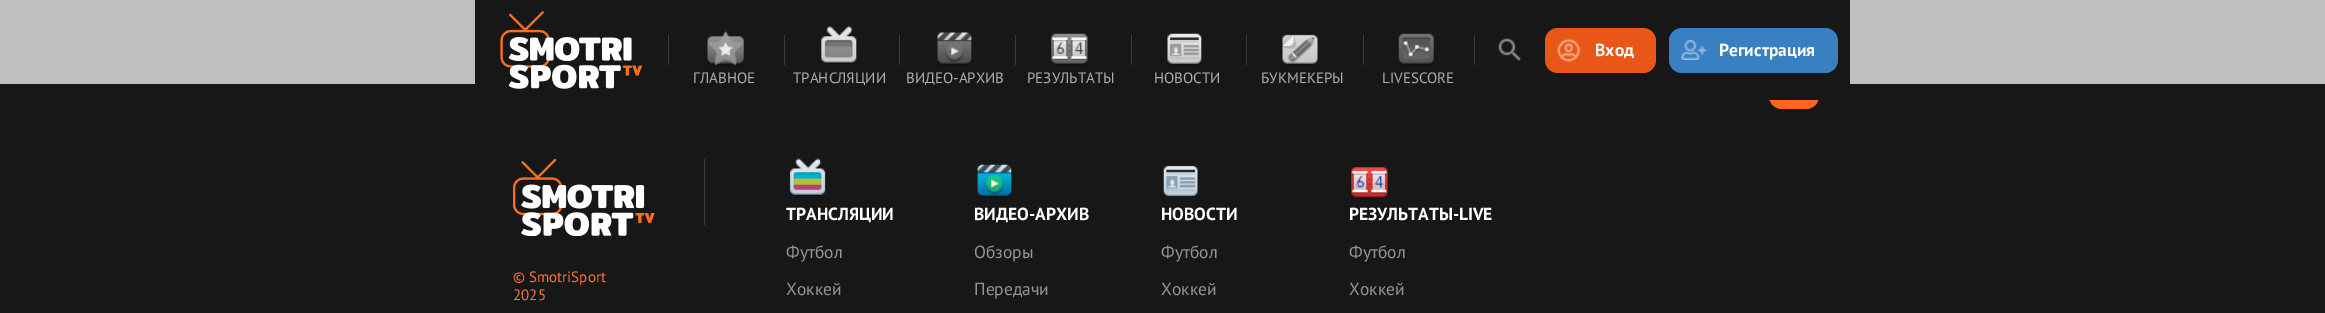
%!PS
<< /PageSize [2325 313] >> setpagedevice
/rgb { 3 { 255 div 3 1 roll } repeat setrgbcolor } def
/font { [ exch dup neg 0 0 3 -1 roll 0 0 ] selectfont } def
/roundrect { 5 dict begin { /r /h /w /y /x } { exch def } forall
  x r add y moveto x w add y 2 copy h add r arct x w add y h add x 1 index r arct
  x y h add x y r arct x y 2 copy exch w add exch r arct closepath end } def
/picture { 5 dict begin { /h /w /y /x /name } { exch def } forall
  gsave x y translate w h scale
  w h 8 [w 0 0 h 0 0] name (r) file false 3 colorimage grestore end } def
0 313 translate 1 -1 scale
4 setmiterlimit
191 191 191 rgb
0 0 2325 313 rectfill
23 23 23 rgb
0 84 2325 229 rectfill
255 102 26 rgb
1769 59 50 50 13 roundrect fill
23 23 23 rgb
475 0 1375 100 rectfill
(img/1.rgb) 500 11 142 78 picture
(img/2.rgb) 1498 38 23 23 picture
232 87 23 rgb
1545 28 111 45 13 roundrect fill
(img/3.rgb) 1557 38 23 24 picture
56 128 194 rgb
1669 28 169 45 13 roundrect fill
(img/4.rgb) 1681 40 26 20 picture
58 58 58 rgb
668 35 1 30 rectfill
(img/5.rgb) 707 31 37 35 picture
784 35 1 30 rectfill
(img/6.rgb) 821 26 36 38 picture
899 35 1 30 rectfill
(img/7.rgb) 937 32 35 33 picture
1015 35 1 30 rectfill
(img/8.rgb) 1051 33 37 32 picture
1131 35 1 30 rectfill
(img/9.rgb) 1167 33 35 32 picture
1246 35 1 30 rectfill
(img/10.rgb) 1282 34 36 31 picture
1363 35 1 30 rectfill
1474 35 1 30 rectfill
(img/11.rgb) 1398 33 36 32 picture
(img/12.rgb) 513 159 142 77 picture
704 159 1 66 rectfill
(img/13.rgb) 789 158 37 38 picture
(img/14.rgb) 977 164 35 34 picture
(img/15.rgb) 1163 165 35 33 picture
(img/16.rgb) 1351 167 37 32 picture
/PTSans-Bold 17.5 font
255 255 255 rgb
1595 56 moveto (Вход) show
1719 56 moveto (Регистрация) show
/PTSans-Regular 15 font
171 174 180 rgb
[
  [(ГЛАВНОЕ) 693 83]
  [(ТРАНСЛЯЦИИ) 793 83]
  [(ВИДЕО-АРХИВ) 906 83]
  [(РЕЗУЛЬТАТЫ) 1027 83]
  [(НОВОСТИ) 1154 83]
  [(БУКМЕКЕРЫ) 1261 83]
  [(LIVESCORE) 1382 83]
] { aload pop moveto show } forall
255 117 49 rgb
513 282 moveto (© SmotriSport) show
513 300 moveto (2025) show
/PTSans-Bold 17.5 font
255 255 255 rgb
786 220 moveto (ТРАНСЛЯЦИИ) show
/PTSans-Regular 17.5 font
148 148 148 rgb
786 258 moveto (Футбол) show
786 295 moveto (Хоккей) show
/PTSans-Bold 17.5 font
255 255 255 rgb
974 220 moveto (ВИДЕО-АРХИВ) show
/PTSans-Regular 17.5 font
148 148 148 rgb
974 258 moveto (Обзоры) show
974 295 moveto (Передачи) show
/PTSans-Bold 17.5 font
255 255 255 rgb
1161 220 moveto (НОВОСТИ) show
/PTSans-Regular 17.5 font
148 148 148 rgb
1161 258 moveto (Футбол) show
1161 295 moveto (Хоккей) show
/PTSans-Bold 17.5 font
255 255 255 rgb
1349 220 moveto (РЕЗУЛЬТАТЫ-LIVE) show
/PTSans-Regular 17.5 font
148 148 148 rgb
1349 258 moveto (Футбол) show
1349 295 moveto (Хоккей) show
showpage
